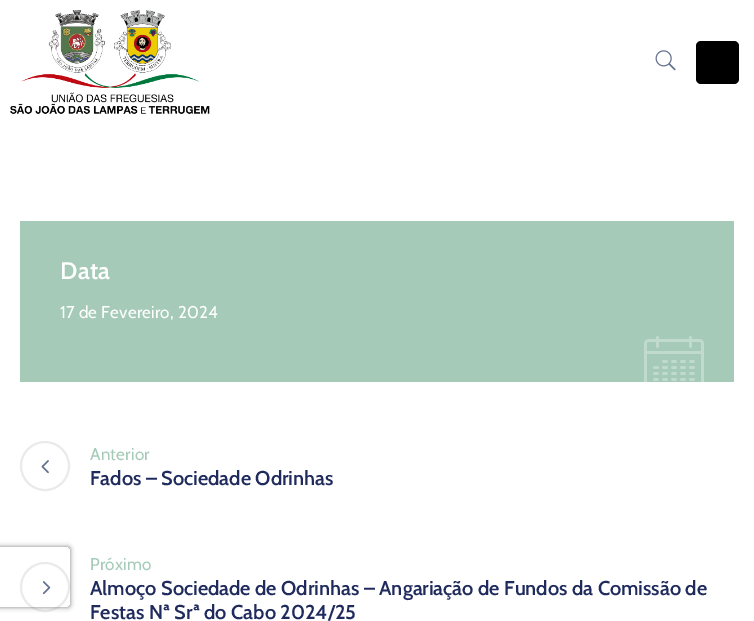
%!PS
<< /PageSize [754 621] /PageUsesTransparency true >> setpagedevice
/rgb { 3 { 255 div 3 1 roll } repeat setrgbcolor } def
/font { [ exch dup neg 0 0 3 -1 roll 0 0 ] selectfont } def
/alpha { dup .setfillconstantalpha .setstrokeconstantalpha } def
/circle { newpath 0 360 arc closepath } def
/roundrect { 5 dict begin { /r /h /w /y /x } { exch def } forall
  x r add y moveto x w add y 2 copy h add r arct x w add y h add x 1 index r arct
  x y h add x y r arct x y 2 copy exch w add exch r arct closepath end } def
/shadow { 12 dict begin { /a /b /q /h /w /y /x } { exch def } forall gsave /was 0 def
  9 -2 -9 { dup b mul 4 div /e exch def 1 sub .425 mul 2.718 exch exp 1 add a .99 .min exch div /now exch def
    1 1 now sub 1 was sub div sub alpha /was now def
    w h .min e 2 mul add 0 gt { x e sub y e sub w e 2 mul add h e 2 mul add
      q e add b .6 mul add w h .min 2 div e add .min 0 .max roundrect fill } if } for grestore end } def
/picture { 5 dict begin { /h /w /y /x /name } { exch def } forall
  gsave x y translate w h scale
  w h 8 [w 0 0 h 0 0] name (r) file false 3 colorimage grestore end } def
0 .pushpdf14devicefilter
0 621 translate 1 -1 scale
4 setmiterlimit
255 255 255 rgb
0 0 754 621 rectfill
(img/1.rgb) 10 10 200 104 picture
(img/2.rgb) 655 50 21 21 picture
0 0 0 rgb
696 41 43 43 5 roundrect fill
234 234 234 rgb
2 setlinewidth
45 587 24 circle stroke
(img/5.rgb) 42 581 9 14 picture
gsave
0 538 moveto 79 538 lineto 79 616 lineto 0 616 lineto closepath -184 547 moveto 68 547 lineto 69 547 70 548 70 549 curveto 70 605 lineto 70 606 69 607 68 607 curveto -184 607 lineto -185 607 -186 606 -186 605 curveto -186 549 lineto -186 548 -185 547 -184 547 curveto closepath eoclip newpath
128 128 128 rgb
-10 547 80 60 2 2.5 1 shadow
grestore
165 202 184 rgb
20 221 714 161 rectfill
(img/3.rgb) 644 336 60 46 picture
234 234 234 rgb
45 466 24 circle stroke
(img/4.rgb) 41 460 8 14 picture
/Cabin-SemiBold 24 font
255 255 255 rgb
60 279 moveto 0.2 0 (Data) ashow
/Cabin-Regular 17 font
60 318 moveto 0.2 0 (17 de Fevereiro, 2024) ashow
165 202 184 rgb
90 460 moveto 0.2 0 (Anterior) ashow
/Cabin-SemiBold 20 font
32 43 93 rgb
90 485 moveto (Fados – Sociedade Odrinhas) show
/Cabin-Regular 17 font
165 202 184 rgb
90 570 moveto 0.2 0 (Próximo) ashow
/Cabin-SemiBold 20 font
32 43 93 rgb
90 595 moveto (Almoço Sociedade de Odrinhas – Angariação de Fundos da Comissão de) show
90 619 moveto (Festas Nª Srª do Cabo 2024/25) show
.poppdf14devicefilter showpage
